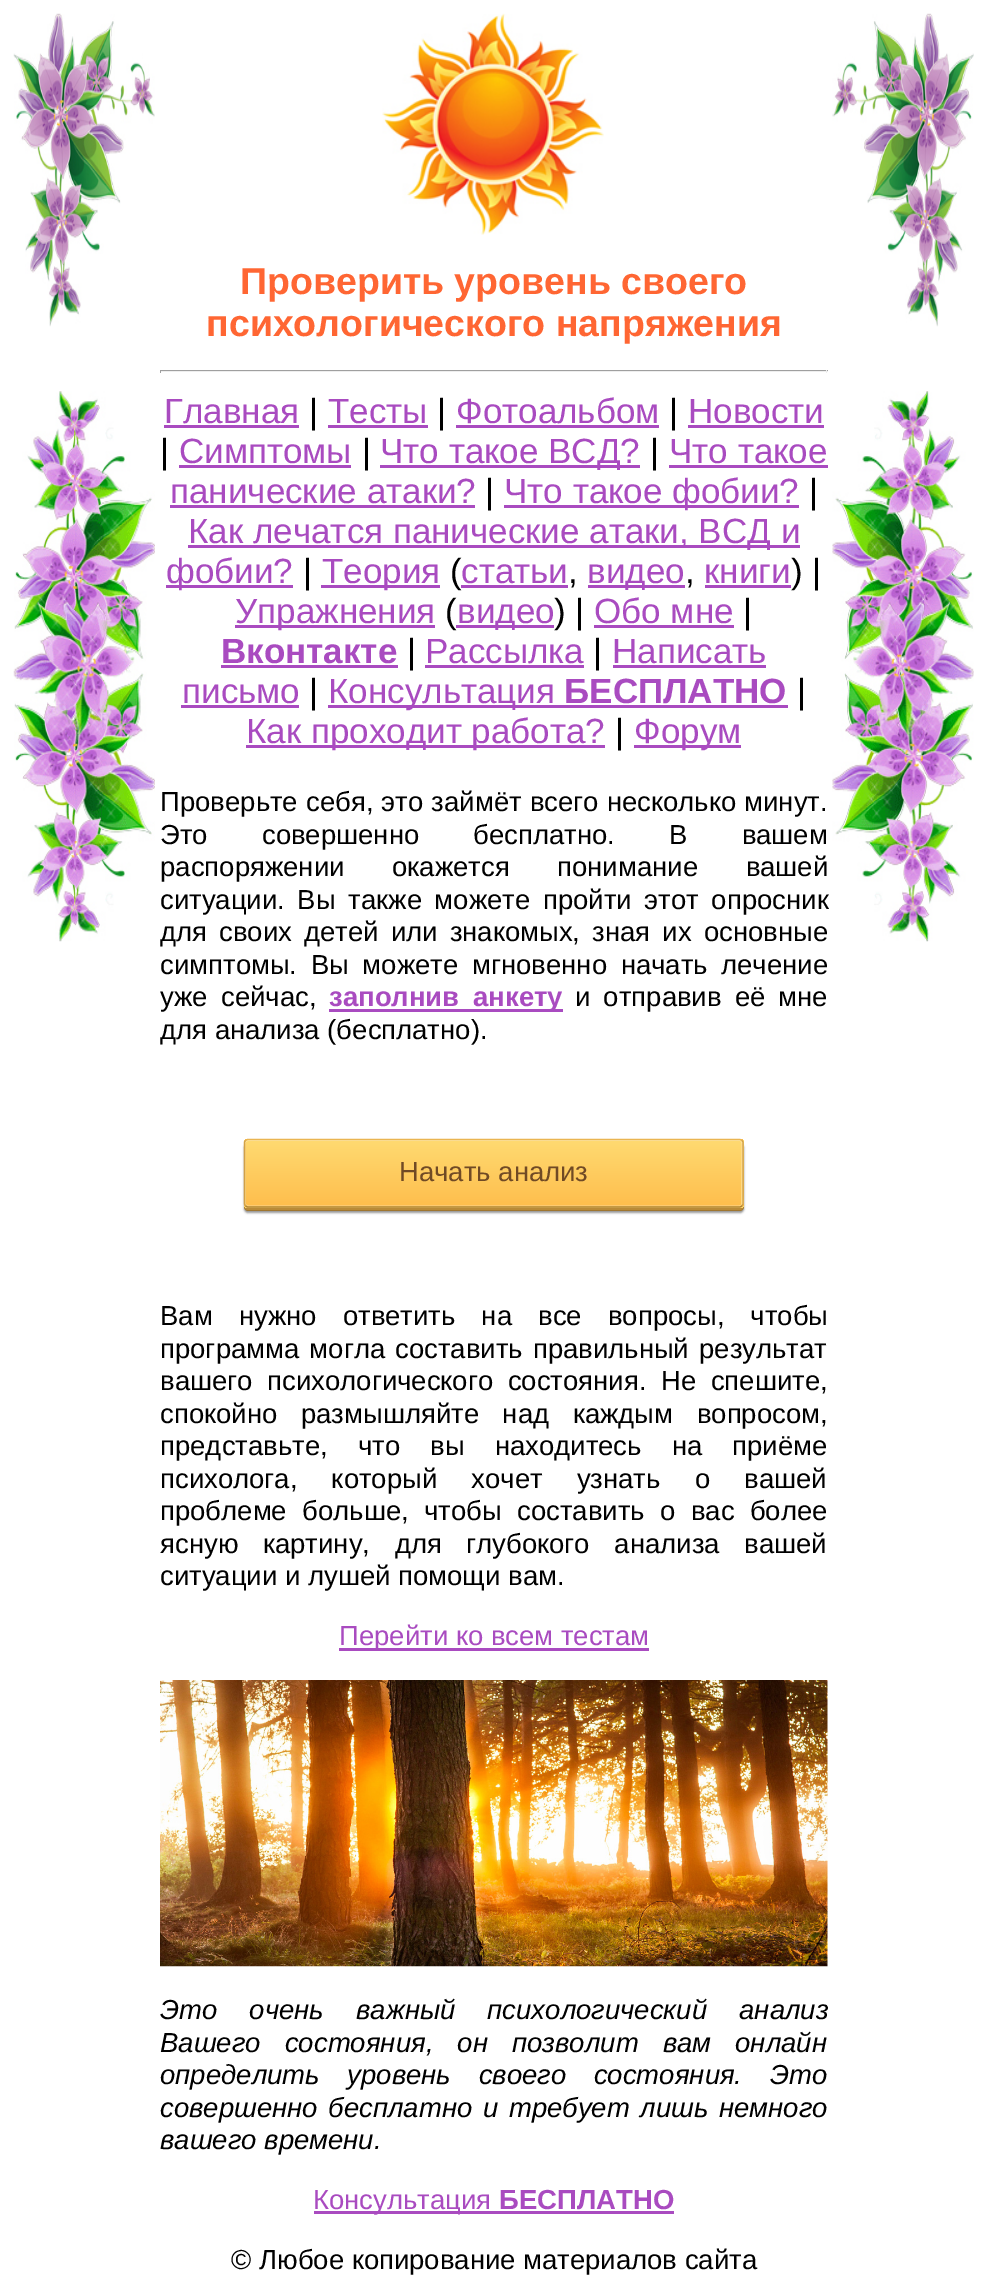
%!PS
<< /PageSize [987 2285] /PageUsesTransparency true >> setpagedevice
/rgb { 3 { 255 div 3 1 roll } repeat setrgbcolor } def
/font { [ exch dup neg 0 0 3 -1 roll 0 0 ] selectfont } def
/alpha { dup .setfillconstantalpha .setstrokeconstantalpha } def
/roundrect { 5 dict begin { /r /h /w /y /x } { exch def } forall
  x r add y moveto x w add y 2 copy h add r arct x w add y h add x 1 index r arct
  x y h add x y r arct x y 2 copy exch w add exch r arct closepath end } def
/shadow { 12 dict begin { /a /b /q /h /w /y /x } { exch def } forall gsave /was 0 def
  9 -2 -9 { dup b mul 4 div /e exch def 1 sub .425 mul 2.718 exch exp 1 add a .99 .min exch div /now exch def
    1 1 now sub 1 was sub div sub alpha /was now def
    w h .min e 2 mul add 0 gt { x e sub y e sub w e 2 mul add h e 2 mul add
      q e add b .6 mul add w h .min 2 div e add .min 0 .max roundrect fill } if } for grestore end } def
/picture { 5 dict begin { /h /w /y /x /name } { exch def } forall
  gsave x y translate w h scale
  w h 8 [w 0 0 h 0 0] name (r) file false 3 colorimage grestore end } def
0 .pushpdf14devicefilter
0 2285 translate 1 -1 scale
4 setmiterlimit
255 255 255 rgb
0 0 987 2285 rectfill
(img/1.rgb) 13 13 142 314 picture
(img/2.rgb) 382 13 222 222 picture
[
  [160 370 668 1 159 159 159]
  [826 370 1 3 238 238 238]
  [160 371 668 1 238 238 238]
  [160 370 1 3 159 159 159]
] { aload pop rgb rectfill } forall
(img/3.rgb) 832 13 142 314 picture
(img/4.rgb) 13 391 142 551 picture
[
  [164 425 135 3 169 75 192]
  [328 425 100 3 169 75 192]
  [456 425 203 3 169 75 192]
  [688 425 136 3 169 75 192]
  [179 465 172 3 169 75 192]
  [380 465 260 3 169 75 192]
  [669 465 159 3 169 75 192]
  [170 505 305 3 169 75 192]
  [504 505 295 3 169 75 192]
  [188 545 612 3 169 75 192]
  [166 585 127 3 169 75 192]
  [321 585 119 3 169 75 192]
  [461 585 107 3 169 75 192]
  [588 585 97 3 169 75 192]
  [705 585 86 3 169 75 192]
  [235 625 200 3 169 75 192]
  [594 625 140 3 169 75 192]
  [221 665 177 3 169 75 192]
  [425 665 159 3 169 75 192]
  [613 665 153 3 169 75 192]
  [181 705 118 3 169 75 192]
  [328 705 460 3 169 75 192]
  [246 745 359 3 169 75 192]
  [634 745 107 3 169 75 192]
  [329 1009 234 3 169 75 192]
] { aload pop rgb rectfill } forall
0 0 0 rgb
244 1144 500 69 4 1 0.4 shadow
159 118 48 rgb
244 1205 moveto 244 1207 lineto 244 1209 246 1211 248 1211 curveto 740 1211 lineto 742 1211 744 1209 744 1207 curveto 744 1146 lineto 744 1204 lineto 744 1206 742 1208 740 1208 curveto 248 1208 lineto 246 1208 245 1207 244 1205 curveto closepath fill
185 138 55 rgb
244 1205 moveto 244 1206 lineto 244 1208 246 1210 248 1210 curveto 740 1210 lineto 742 1210 744 1208 744 1206 curveto 744 1144 lineto 744 1204 lineto 744 1206 742 1208 740 1208 curveto 248 1208 lineto 246 1208 245 1207 244 1205 curveto closepath fill
gsave
244 1139 500 69 4 roundrect clip newpath
gsave 244 1139 moveto 744 1139 lineto 744 1140 lineto 244 1140 lineto closepath clip newpath
<< /ShadingType 2 /ColorSpace /DeviceRGB /Coords [494 1074 494 1140] /Extend [true true] /Function << /FunctionType 2 /Domain [0 1] /C0 [0.996 0.855 0.443] /C1 [0.996 0.745 0.302] /N 1 >> >> shfill grestore
gsave 244 1140 moveto 744 1140 lineto 744 1206 lineto 244 1206 lineto closepath clip newpath
<< /ShadingType 2 /ColorSpace /DeviceRGB /Coords [494 1140 494 1206] /Extend [true true] /Function << /FunctionType 2 /Domain [0 1] /C0 [0.996 0.855 0.443] /C1 [0.996 0.745 0.302] /N 1 >> >> shfill grestore
gsave 244 1206 moveto 744 1206 lineto 744 1208 lineto 244 1208 lineto closepath clip newpath
<< /ShadingType 2 /ColorSpace /DeviceRGB /Coords [494 1206 494 1273] /Extend [true true] /Function << /FunctionType 2 /Domain [0 1] /C0 [0.996 0.855 0.443] /C1 [0.996 0.745 0.302] /N 1 >> >> shfill grestore
grestore
254 202 111 rgb
245 1202 moveto 245 1204 lineto 245 1205 246 1206 248 1206 curveto 740 1206 lineto 742 1206 743 1205 743 1204 curveto 743 1142 lineto 743 1142 743 1141 742 1140 curveto 742 1202 lineto 742 1204 741 1205 740 1205 curveto 248 1205 lineto 246 1205 245 1204 245 1202 curveto closepath fill
254 218 133 rgb
739 1206 moveto 746 1206 743 1199 743 1193 curveto 743 1153 lineto 743 1147 746 1140 739 1140 curveto 740 1140 741 1141 741 1142 curveto 741 1205 lineto closepath fill
254 214 127 rgb
248 1140 moveto 246 1140 245 1141 245 1142 curveto 245 1204 lineto 245 1205 246 1206 248 1206 curveto 249 1206 lineto 247 1206 246 1205 246 1204 curveto 246 1142 lineto 246 1141 247 1140 249 1140 curveto closepath fill
254 233 170 rgb
248 1141 moveto 740 1141 lineto 741 1141 742 1142 742 1144 curveto 742 1206 lineto 743 1205 743 1204 743 1204 curveto 743 1142 lineto 743 1141 742 1140 740 1140 curveto 248 1140 lineto 246 1140 245 1141 245 1142 curveto 245 1144 lineto 245 1142 246 1141 248 1141 curveto closepath fill
234 181 81 rgb
1.2 setlinewidth
245.5 1140.5 moveto 247.5 1139.5 lineto 740 1139.5 lineto 742 1140.5 lineto stroke
210 161 70 rgb
742 1140.5 moveto 743 1142 lineto 743 1204 lineto 742 1206 lineto stroke
175 130 52 rgb
742 1206 moveto 740 1207 lineto 247.5 1207 lineto 245.5 1206 lineto stroke
210 161 70 rgb
245.5 1206 moveto 244.5 1204 lineto 244.5 1142 lineto 245.5 1140.5 lineto stroke
169 75 192 rgb
339 1648 310 3 rectfill
(img/5.rgb) 160 1680 668 287 picture
314 2211 360 3 rectfill
(img/6.rgb) 832 391 142 551 picture
/LiberationSans-Bold 37.5 font
255 102 51 rgb
240 294 moveto (Проверить уровень своего) show
206 336 moveto (психологического напряжения) show
/LiberationSans-Regular 35 font
169 75 192 rgb
164 423 moveto (Главная) show
0 0 0 rgb
309 423 moveto (|) show
169 75 192 rgb
328 423 moveto (Тесты) show
0 0 0 rgb
437 423 moveto (|) show
169 75 192 rgb
456 423 moveto (Фотоальбом) show
0 0 0 rgb
669 423 moveto (|) show
169 75 192 rgb
688 423 moveto (Новости) show
0 0 0 rgb
160 463 moveto (|) show
169 75 192 rgb
179 463 moveto (Симптомы) show
0 0 0 rgb
362 463 moveto (|) show
169 75 192 rgb
380 463 moveto (Что такое ВСД?) show
0 0 0 rgb
650 463 moveto (|) show
169 75 192 rgb
669 463 moveto (Что такое) show
170 503 moveto (панические атаки?) show
0 0 0 rgb
485 503 moveto (|) show
169 75 192 rgb
504 503 moveto (Что такое фобии?) show
0 0 0 rgb
809 503 moveto (|) show
169 75 192 rgb
188 543 moveto (Как лечатся панические атаки, ВСД и) show
166 583 moveto (фобии?) show
0 0 0 rgb
303 583 moveto (|) show
169 75 192 rgb
322 583 moveto (Теория) show
0 0 0 rgb
450 583 moveto (\() show
169 75 192 rgb
461 583 moveto (статьи) show
0 0 0 rgb
568 583 moveto (,) show
169 75 192 rgb
587 583 moveto (видео) show
0 0 0 rgb
685 583 moveto (,) show
169 75 192 rgb
704 583 moveto (книги) show
0 0 0 rgb
791 583 moveto (\) |) show
169 75 192 rgb
235 623 moveto (Упражнения) show
0 0 0 rgb
445 623 moveto (\() show
169 75 192 rgb
456 625 98 3 rectfill
457 623 moveto (видео) show
0 0 0 rgb
554 623 moveto (\) |) show
169 75 192 rgb
594 623 moveto (Обо мне) show
0 0 0 rgb
743 623 moveto (|) show
/LiberationSans-Bold 35 font
169 75 192 rgb
221 663 moveto (Вконтакте) show
/LiberationSans-Regular 35 font
0 0 0 rgb
407 663 moveto (|) show
169 75 192 rgb
425 663 moveto (Рассылка) show
0 0 0 rgb
593 663 moveto (|) show
169 75 192 rgb
612 663 moveto (Написать) show
182 703 moveto (письмо) show
0 0 0 rgb
309 703 moveto (|) show
169 75 192 rgb
328 703 moveto (Консультация) show
/LiberationSans-Bold 35 font
564 703 moveto (БЕСПЛАТНО) show
/LiberationSans-Regular 35 font
0 0 0 rgb
797 703 moveto (|) show
169 75 192 rgb
246 743 moveto (Как проходит работа?) show
0 0 0 rgb
615 743 moveto (|) show
169 75 192 rgb
634 743 moveto (Форум) show
/LiberationSans-Regular 27.5 font
0 0 0 rgb
160 811 moveto 0.5 0 32 (Проверьте себя, это займёт всего несколько минут.) widthshow
160 844 moveto 46.5 0 32 (Это совершенно бесплатно. В вашем) widthshow
160 876 moveto 40 0 32 (распоряжении окажется понимание вашей) widthshow
160 909 moveto 5 0 32 (ситуации. Вы также можете пройти этот опросник) widthshow
160 941 moveto 4.5 0 32 (для своих детей или знакомых, зная их основные) widthshow
160 974 moveto 6 0 32 (симптомы. Вы можете мгновенно начать лечение) widthshow
160 1006 moveto 6 0 32 (уже сейчас,) widthshow
/LiberationSans-Bold 27.5 font
169 75 192 rgb
329 1006 moveto 6 0 32 (заполнив анкету) widthshow
/LiberationSans-Regular 27.5 font
0 0 0 rgb
575 1006 moveto 5.5 0 32 (и отправив её мне) widthshow
160 1039 moveto (для анализа \(бесплатно\).) show
112 74 37 rgb
399 1181 moveto (Начать анализ) show
0 0 0 rgb
160 1325 moveto 18.5 0 32 (Вам нужно ответить на все вопросы, чтобы) widthshow
160 1358 moveto 2.5 0 32 (программа могла составить правильный результат) widthshow
160 1390 moveto 7 0 32 (вашего психологического состояния. Не спешите,) widthshow
160 1423 moveto 16 0 32 (спокойно размышляйте над каждым вопросом,) widthshow
160 1455 moveto 22.5 0 32 (представьте, что вы находитесь на приёме) widthshow
160 1488 moveto 26.5 0 32 (психолога, который хочет узнать о вашей) widthshow
160 1520 moveto 7.75 0 32 (проблеме больше, чтобы составить о вас более) widthshow
160 1553 moveto 17 0 32 (ясную картину, для глубокого анализа вашей) widthshow
160 1585 moveto (ситуации и лушей помощи вам.) show
169 75 192 rgb
339 1645 moveto (Перейти ко всем тестам) show
/LiberationSans-Italic 27.5 font
0 0 0 rgb
160 2019 moveto 24.5 0 32 (Это очень важный психологический анализ) widthshow
160 2052 moveto 16.5 0 32 (Вашего состояния, он позволит вам онлайн) widthshow
160 2084 moveto 20 0 32 (определить уровень своего состояния. Это) widthshow
160 2117 moveto 3 0 32 (совершенно бесплатно и требует лишь немного) widthshow
160 2149 moveto (вашего времени.) show
/LiberationSans-Regular 27.5 font
169 75 192 rgb
313 2209 moveto (Консультация) show
/LiberationSans-Bold 27.5 font
499 2209 moveto (БЕСПЛАТНО) show
/LiberationSans-Regular 27.5 font
0 0 0 rgb
231 2269 moveto (© Любое копирование материалов сайта) show
.poppdf14devicefilter showpage
